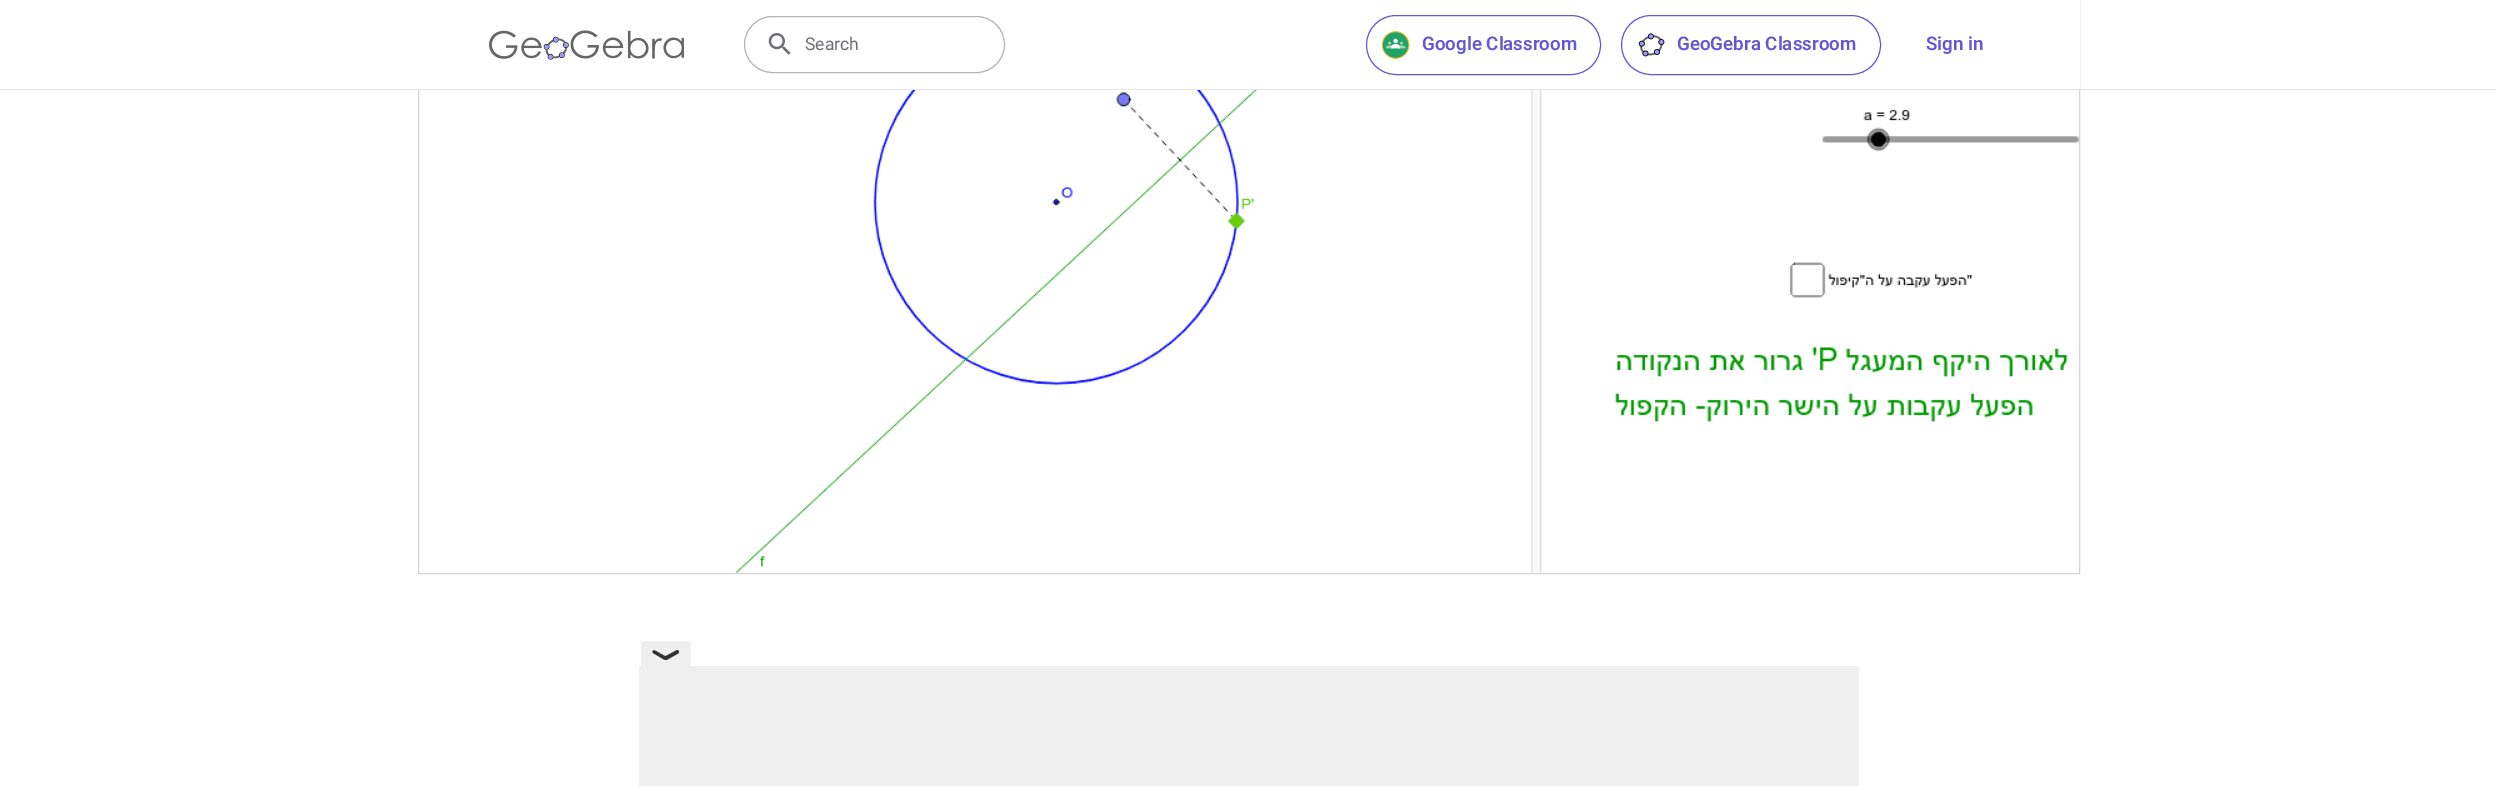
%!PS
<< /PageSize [2496 786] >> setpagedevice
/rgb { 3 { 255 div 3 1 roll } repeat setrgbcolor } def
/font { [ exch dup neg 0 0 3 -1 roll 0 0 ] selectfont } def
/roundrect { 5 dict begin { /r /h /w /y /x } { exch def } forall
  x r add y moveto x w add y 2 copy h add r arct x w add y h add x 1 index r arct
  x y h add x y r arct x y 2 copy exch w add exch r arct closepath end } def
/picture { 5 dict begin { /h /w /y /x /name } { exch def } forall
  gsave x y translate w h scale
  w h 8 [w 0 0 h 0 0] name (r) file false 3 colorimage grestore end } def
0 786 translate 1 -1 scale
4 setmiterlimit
255 255 255 rgb
0 0 2496 786 rectfill
(img/1.rgb) 736 90 1343 483 picture
211 211 211 rgb
418.5 -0.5 1661 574 rectstroke
255 255 255 rgb
418 0 1662 89 rectfill
230 230 235 rgb
0 89 2496 1 rectfill
(img/2.rgb) 489 30 195 30 picture
180 179 186 rgb
744.5 16.5 260 56 28 roundrect stroke
(img/3.rgb) 768 33 23 22 picture
101 87 210 rgb
1366.5 15.5 234 59 29.5 roundrect stroke
(img/4.rgb) 1381 31 29 28 picture
1621.5 15.5 259 59 29.5 roundrect stroke
(img/5.rgb) 1638 33 27 24 picture
239 239 239 rgb
643.5 641 moveto 688.5 641 lineto 690 641 691 642 691 643.5 curveto 691 666 lineto 641 666 lineto 641 643.5 lineto 641 642 642 641 643.5 641 curveto closepath fill
49 49 49 rgb
655 650.5 moveto 666.5 657 lineto 668 658.5 666 660.5 664 659.5 curveto 653 653 lineto 651.5 651.5 653.5 649.5 655 650.5 curveto closepath fill
665 656.5 moveto 677 650 lineto 679 650 679.5 652.5 678 653.5 curveto 666.5 660 lineto 664.5 660 663.5 657.5 665 656.5 curveto closepath fill
239 239 239 rgb
639 666 1220 120 rectfill
/Roboto-Regular 17.5 font
110 109 115 rgb
805 50 moveto (Search) show
/Roboto-SemiBold 18.75 font
101 87 210 rgb
[
  [(Google Classroom) 1422 50]
  [(GeoGebra Classroom) 1677 50]
  [(Sign in) 1926 50]
] { aload pop moveto show } forall
showpage
